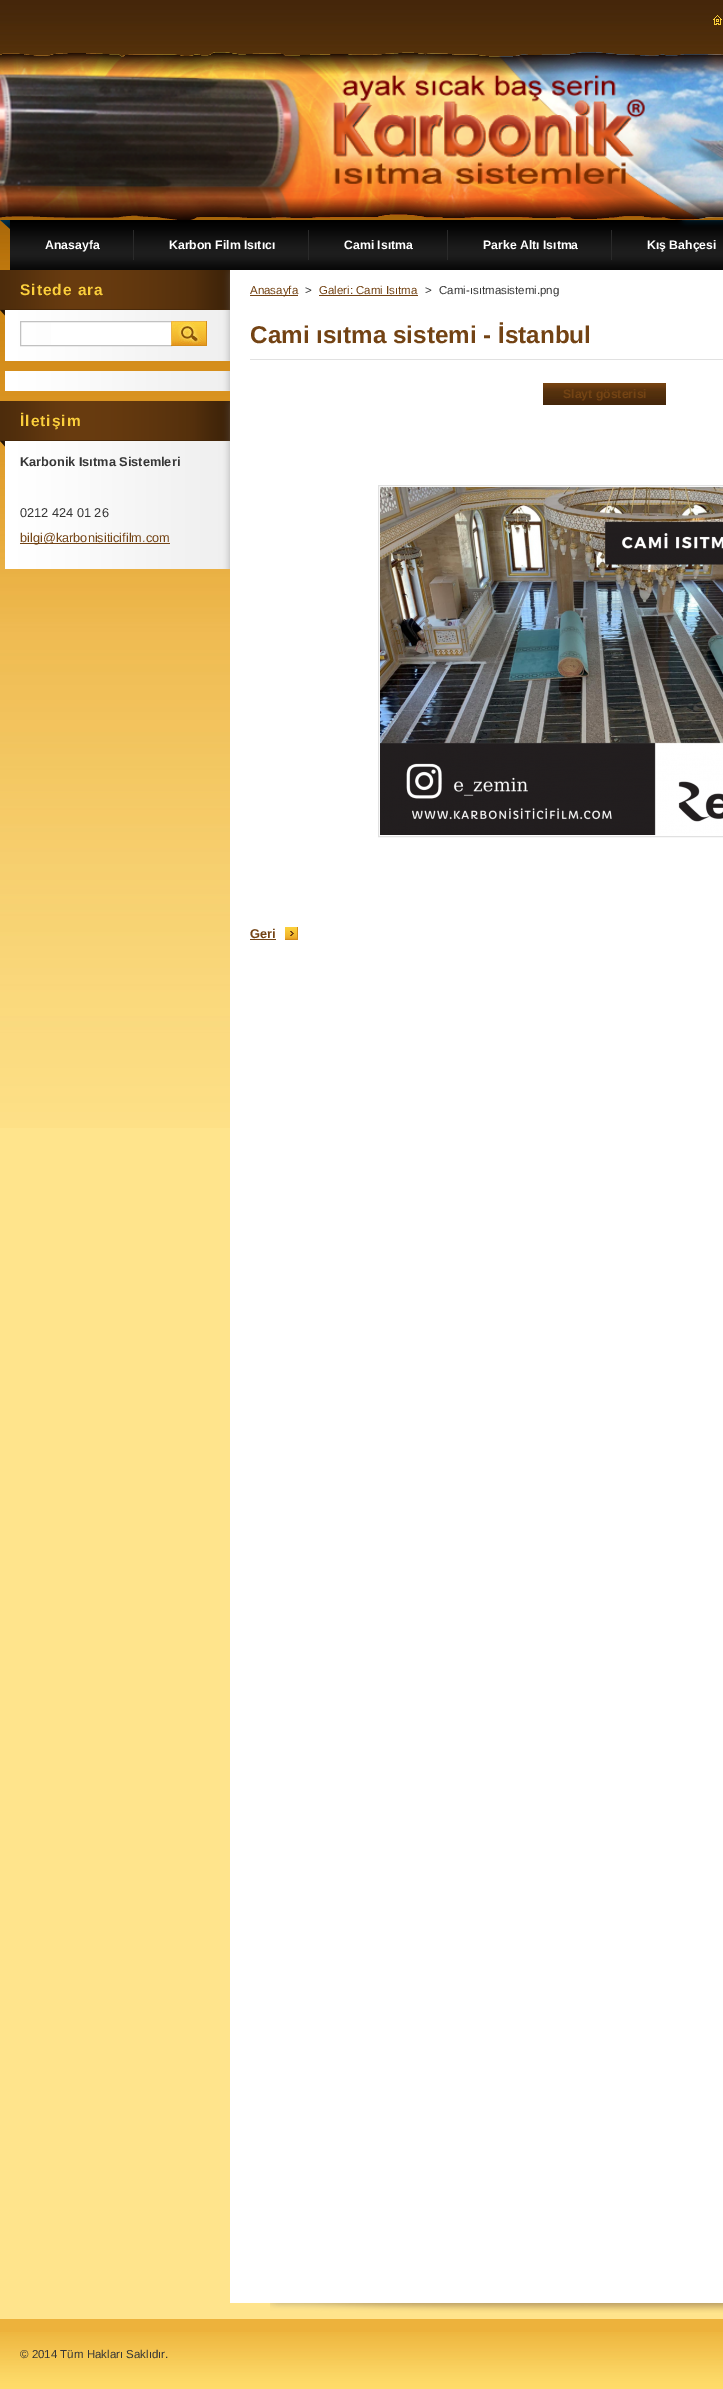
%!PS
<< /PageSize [723 2389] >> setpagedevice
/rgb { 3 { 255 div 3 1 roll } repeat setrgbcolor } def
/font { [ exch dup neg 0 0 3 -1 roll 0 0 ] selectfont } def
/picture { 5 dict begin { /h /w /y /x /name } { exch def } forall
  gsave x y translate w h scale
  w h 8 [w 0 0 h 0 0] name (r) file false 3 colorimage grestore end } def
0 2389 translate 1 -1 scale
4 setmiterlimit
255 228 140 rgb
0 0 723 2389 rectfill
(img/1.rgb) 0 0 723 1128 picture
(img/2.rgb) 713 15 9 10 picture
(img/3.rgb) 0 52 723 168 picture
(img/4.rgb) 0 220 723 50 picture
[
  [133 230 1 30 42 42 42]
  [308 230 1 30 42 42 42]
  [447 230 1 30 42 42 42]
  [611 230 1 30 42 42 42]
] { aload pop rgb rectfill } forall
(img/5.rgb) 5 316 225 45 picture
(img/6.rgb) 0 270 230 46 picture
255 255 255 rgb
51 322 120 23 rectfill
193 193 193 rgb
20.5 321.5 151 24 rectstroke
(img/7.rgb) 171 321 36 25 picture
(img/8.rgb) 5 371 225 20 picture
(img/9.rgb) 5 447 225 122 picture
(img/10.rgb) 0 401 230 46 picture
115 67 20 rgb
20 543 49 1 rectfill
69 543 101 1 rectfill
(img/11.rgb) 270 2303 453 10 picture
[
  [230 270 493 2033 255 255 255]
  [250 295 48 1 115 67 20]
  [319 295 99 1 115 67 20]
  [250 359 473 1 225 225 225]
] { aload pop rgb rectfill } forall
(img/12.rgb) 543 383 123 22 picture
378.5 485.5 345 351 rectstroke
(img/13.rgb) 380 487 343 348 picture
(img/14.rgb) 285 927 13 13 picture
115 67 20 rgb
250 939 26 1 rectfill
237 178 60 rgb
0 2319 723 13 rectfill
(img/15.rgb) 0 2332 723 57 picture
/LiberationSans-Bold 12.25 font
255 255 255 rgb
[
  [(Anasayfa) 45 249]
  [(Karbon Film Isıtıcı) 169 249]
  [(Cami Isıtma) 344 249]
  [(Parke Altı Isıtma) 483 249]
  [(Kış Bahçesi) 647 249]
] { aload pop moveto show } forall
/LiberationSans-Bold 15.5 font
251 207 60 rgb
20 295 moveto 1 0 (Sitede ara) ashow
20 426 moveto 1 0 (İletişim) ashow
/LiberationSans-Bold 12.75 font
54 54 54 rgb
20 466 moveto (Karbonik Isıtma Sistemleri) show
/LiberationSans-Regular 12.75 font
20 517 moveto (0212 424 01 26) show
115 67 20 rgb
20 542 moveto (bilgi@karbonisiticifilm.com) show
/LiberationSans-Regular 11.5 font
250 294 moveto (Anasayfa) show
54 54 54 rgb
305 294 moveto (>) show
115 67 20 rgb
319 294 moveto (Galeri: Cami Isıtma) show
54 54 54 rgb
425 294 moveto (>) show
439 294 moveto (Cami-ısıtmasistemi.png) show
/LiberationSans-Bold 24.25 font
115 67 20 rgb
250 343 moveto (Cami ısıtma sistemi - İstanbul) show
/LiberationSans-Bold 12.25 font
563 398 moveto (Slayt gösterisi) show
/LiberationSans-Bold 12.75 font
250 938 moveto (Geri) show
/LiberationSans-Regular 11.5 font
54 54 54 rgb
20 2358 moveto (© 2014 Tüm Hakları Saklıdır.) show
showpage
